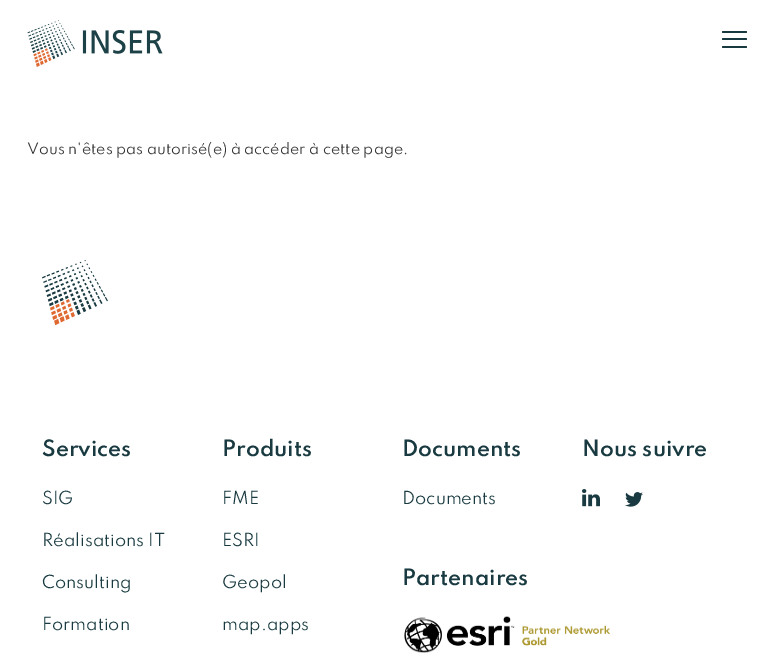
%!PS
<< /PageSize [773 664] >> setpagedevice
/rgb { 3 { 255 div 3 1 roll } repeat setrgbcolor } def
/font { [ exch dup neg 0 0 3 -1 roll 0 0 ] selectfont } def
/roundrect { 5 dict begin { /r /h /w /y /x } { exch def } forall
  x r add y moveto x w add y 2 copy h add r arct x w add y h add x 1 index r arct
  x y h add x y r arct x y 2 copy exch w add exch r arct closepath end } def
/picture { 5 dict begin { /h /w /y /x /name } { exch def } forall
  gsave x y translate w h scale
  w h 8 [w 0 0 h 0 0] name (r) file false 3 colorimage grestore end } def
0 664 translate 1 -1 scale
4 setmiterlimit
255 255 255 rgb
0 0 773 664 rectfill
(img/1.rgb) 27 20 136 47 picture
24 57 63 rgb
722 31 25 2 1 roundrect fill
722 38 25 2 1 roundrect fill
722 46 25 2 1 roundrect fill
(img/2.rgb) 42 260 66 65 picture
(img/3.rgb) 404 616 206 37 picture
(img/4.rgb) 582 489 18 18 picture
(img/5.rgb) 625 492 18 15 picture
/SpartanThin-Regular 14 font
51 51 51 rgb
27 154 moveto (Vous n'êtes pas autorisé\(e\) à accéder à cette page.) show
/SpartanThin-SemiBold 20 font
24 58 64 rgb
42 456 moveto (Services) show
/SpartanThin-Regular 16 font
[
  [(SIG) 42 504]
  [(Réalisations IT) 42 546]
  [(Consulting) 42 588]
  [(Formation) 42 630]
] { aload pop moveto show } forall
/SpartanThin-SemiBold 20 font
222 456 moveto (Produits) show
/SpartanThin-Regular 16 font
[
  [(FME) 222 504]
  [(ESRI) 222 546]
  [(Geopol) 222 588]
  [(map.apps) 222 630]
] { aload pop moveto show } forall
/SpartanThin-SemiBold 20 font
402 456 moveto (Documents) show
/SpartanThin-Regular 16 font
402 504 moveto (Documents) show
/SpartanThin-SemiBold 20 font
402 585 moveto (Partenaires) show
582 456 moveto (Nous suivre) show
showpage
